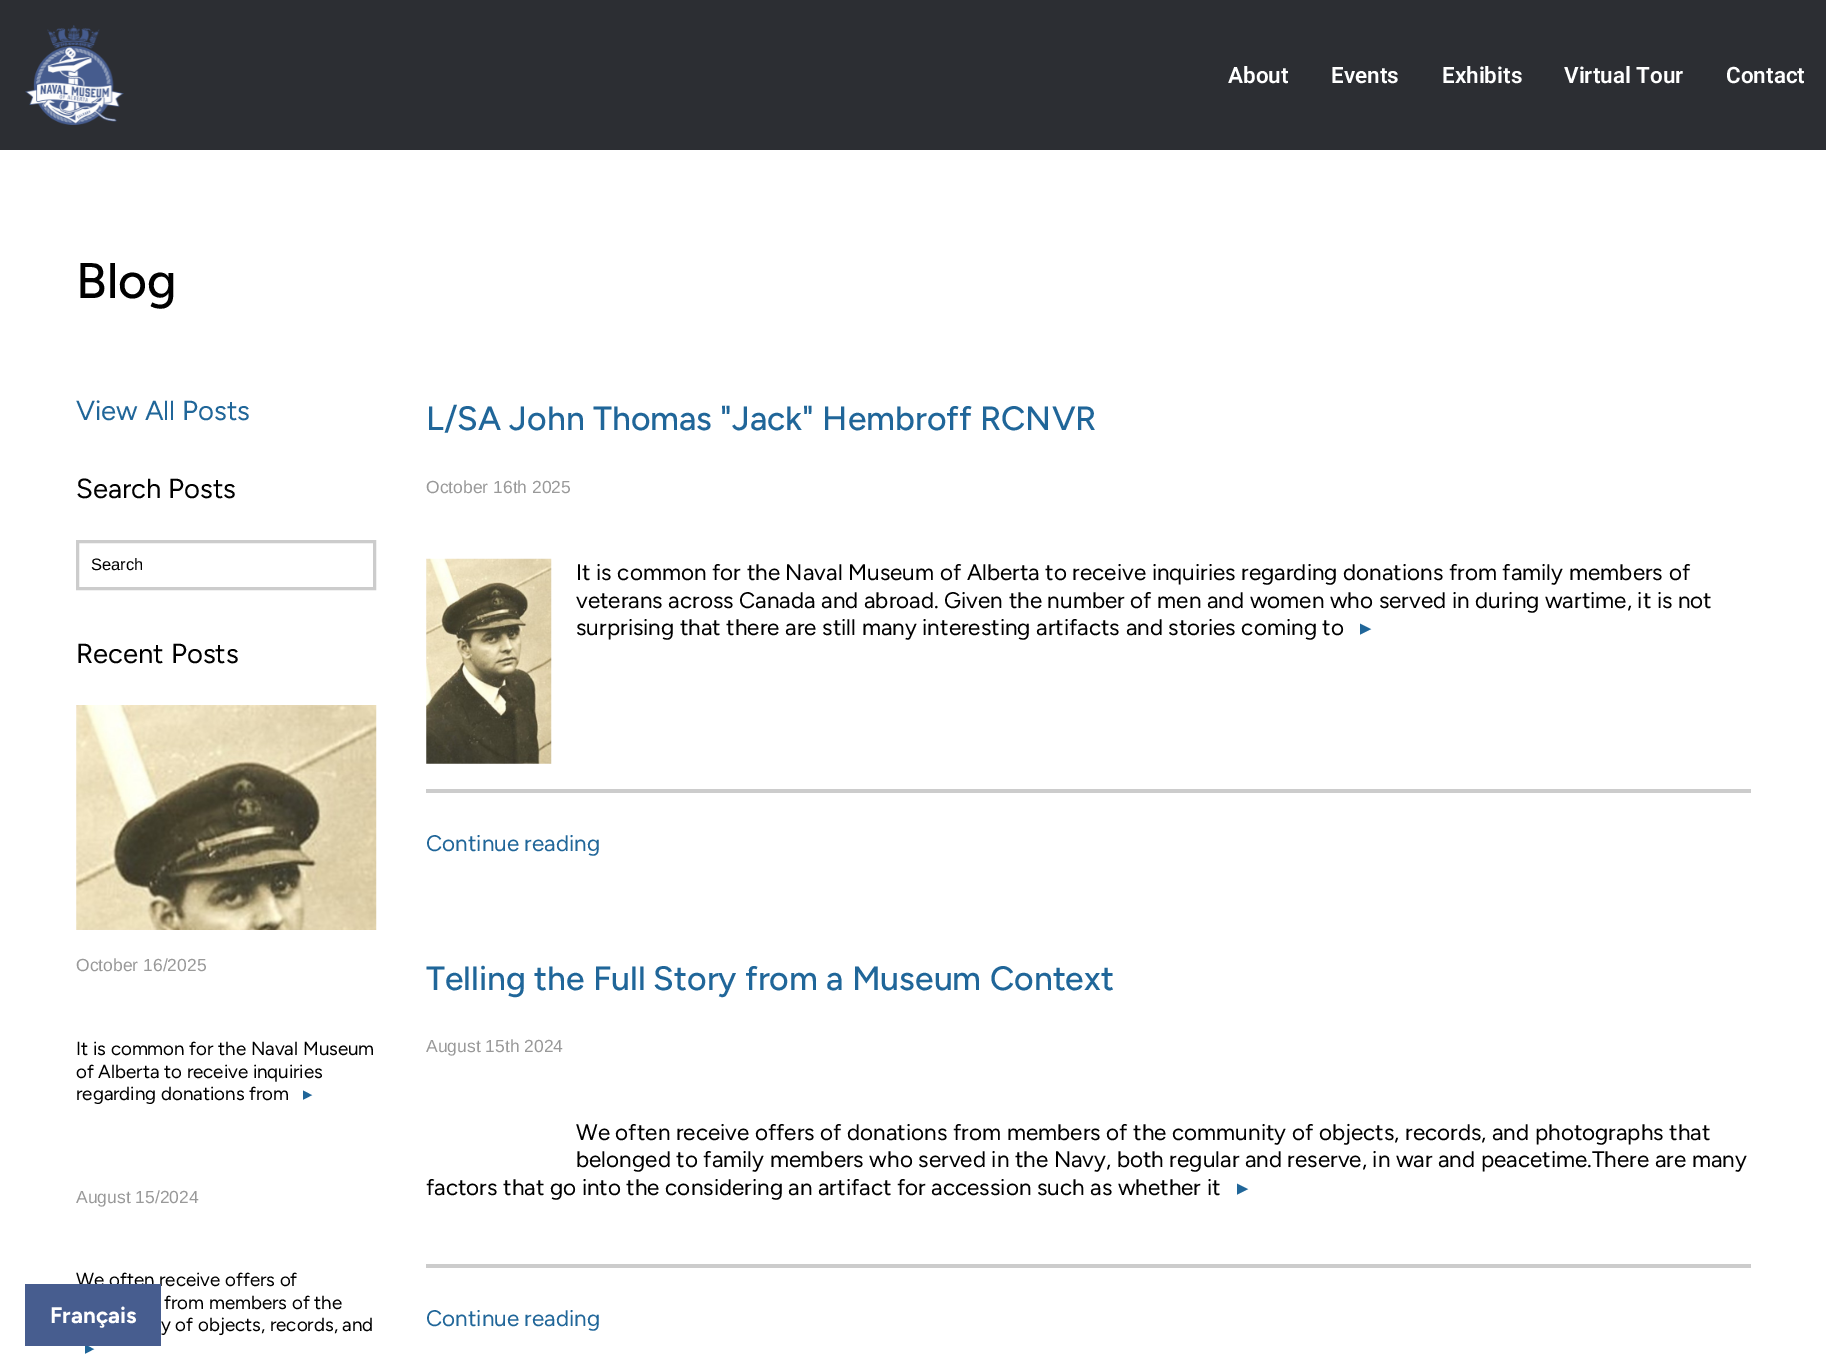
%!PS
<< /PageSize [1826 1371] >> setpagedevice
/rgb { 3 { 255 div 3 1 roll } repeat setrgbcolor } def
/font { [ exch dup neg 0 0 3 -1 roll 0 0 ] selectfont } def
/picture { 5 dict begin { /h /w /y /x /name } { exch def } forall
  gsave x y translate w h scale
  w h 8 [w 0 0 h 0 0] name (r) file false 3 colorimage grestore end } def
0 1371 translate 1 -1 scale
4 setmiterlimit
255 255 255 rgb
0 0 1826 1371 rectfill
44 46 51 rgb
0 0 1826 150 rectfill
(img/1.rgb) 25 25 99 100 picture
204 204 204 rgb
3 setlinewidth
77.5 541.5 297 47 rectstroke
(img/2.rgb) 76 705 301 225 picture
(img/3.rgb) 426 558 126 206 picture
426 789 1325 4 rectfill
426 1264 1325 4 rectfill
/Roboto-SemiBold 22.5 font
255 255 255 rgb
[
  [(About) 1228 83]
  [(Events) 1331 83]
  [(Exhibits) 1442 83]
  [(Virtual Tour) 1564 83]
  [(Contact) 1726 83]
] { aload pop moveto show } forall
/Figtree-Medium 50 font
0 0 0 rgb
76 298 moveto (Blog) show
/Figtree-Regular 27.5 font
32 102 153 rgb
76 420 moveto (View All Posts) show
0 0 0 rgb
76 498 moveto (Search Posts) show
/LiberationSans-Regular 16.5 font
91 570 moveto (Search) show
/Figtree-Regular 27.5 font
76 663 moveto (Recent Posts) show
/LiberationSans-Regular 17.5 font
153 153 153 rgb
76 971 moveto (October 16/2025) show
/Figtree-Regular 18.75 font
0 0 0 rgb
[
  [(It is common for the Naval Museum) 76 1055]
  [(of Alberta to receive inquiries) 76 1078]
  [(regarding donations from) 76 1100]
] { aload pop moveto show } forall
/DejaVuSans-Regular 18.75 font
32 102 153 rgb
303 1100 moveto (▸) show
/LiberationSans-Regular 17.5 font
153 153 153 rgb
76 1203 moveto (August 15/2024) show
/Figtree-Regular 18.75 font
0 0 0 rgb
[
  [(We often receive offers of) 76 1286]
  [(from members of the) 164 1309]
  [(y of objects, records, and) 161 1331]
] { aload pop moveto show } forall
/DejaVuSans-Regular 18.75 font
32 102 153 rgb
85 1354 moveto (▸) show
/Figtree-Medium 33.75 font
426 430 moveto (L/SA John Thomas "Jack" Hembroff RCNVR) show
/LiberationSans-Regular 17.5 font
153 153 153 rgb
426 493 moveto (October 16th 2025) show
/Figtree-Regular 22.5 font
0 0 0 rgb
[
  [(It is common for the Naval Museum of Alberta to receive inquiries regarding donations from family members of) 576 580]
  [(veterans across Canada and abroad. Given the number of men and women who served in during wartime, it is not) 576 608]
  [(surprising that there are still many interesting artifacts and stories coming to) 576 635]
] { aload pop moveto show } forall
/DejaVuSans-Regular 22.5 font
32 102 153 rgb
1360 635 moveto (▸) show
/Figtree-Regular 22.5 font
426 851 moveto (Continue reading) show
/Figtree-Medium 33.75 font
426 990 moveto (Telling the Full Story from a Museum Context) show
/LiberationSans-Regular 17.5 font
153 153 153 rgb
426 1052 moveto (August 15th 2024) show
/Figtree-Regular 22.5 font
0 0 0 rgb
[
  [(We often receive offers of donations from members of the community of objects, records, and photographs that) 576 1140]
  [(belonged to family members who served in the Navy, both regular and reserve, in war and peacetime.There are many) 576 1167]
  [(factors that go into the considering an artifact for accession such as whether it) 426 1195]
] { aload pop moveto show } forall
/DejaVuSans-Regular 22.5 font
32 102 153 rgb
1237 1195 moveto (▸) show
/Figtree-Regular 22.5 font
426 1326 moveto (Continue reading) show
71 93 143 rgb
25 1284 136 62 rectfill
/Figtree-Bold 22.5 font
255 255 255 rgb
50 1323 moveto (Français) show
showpage
